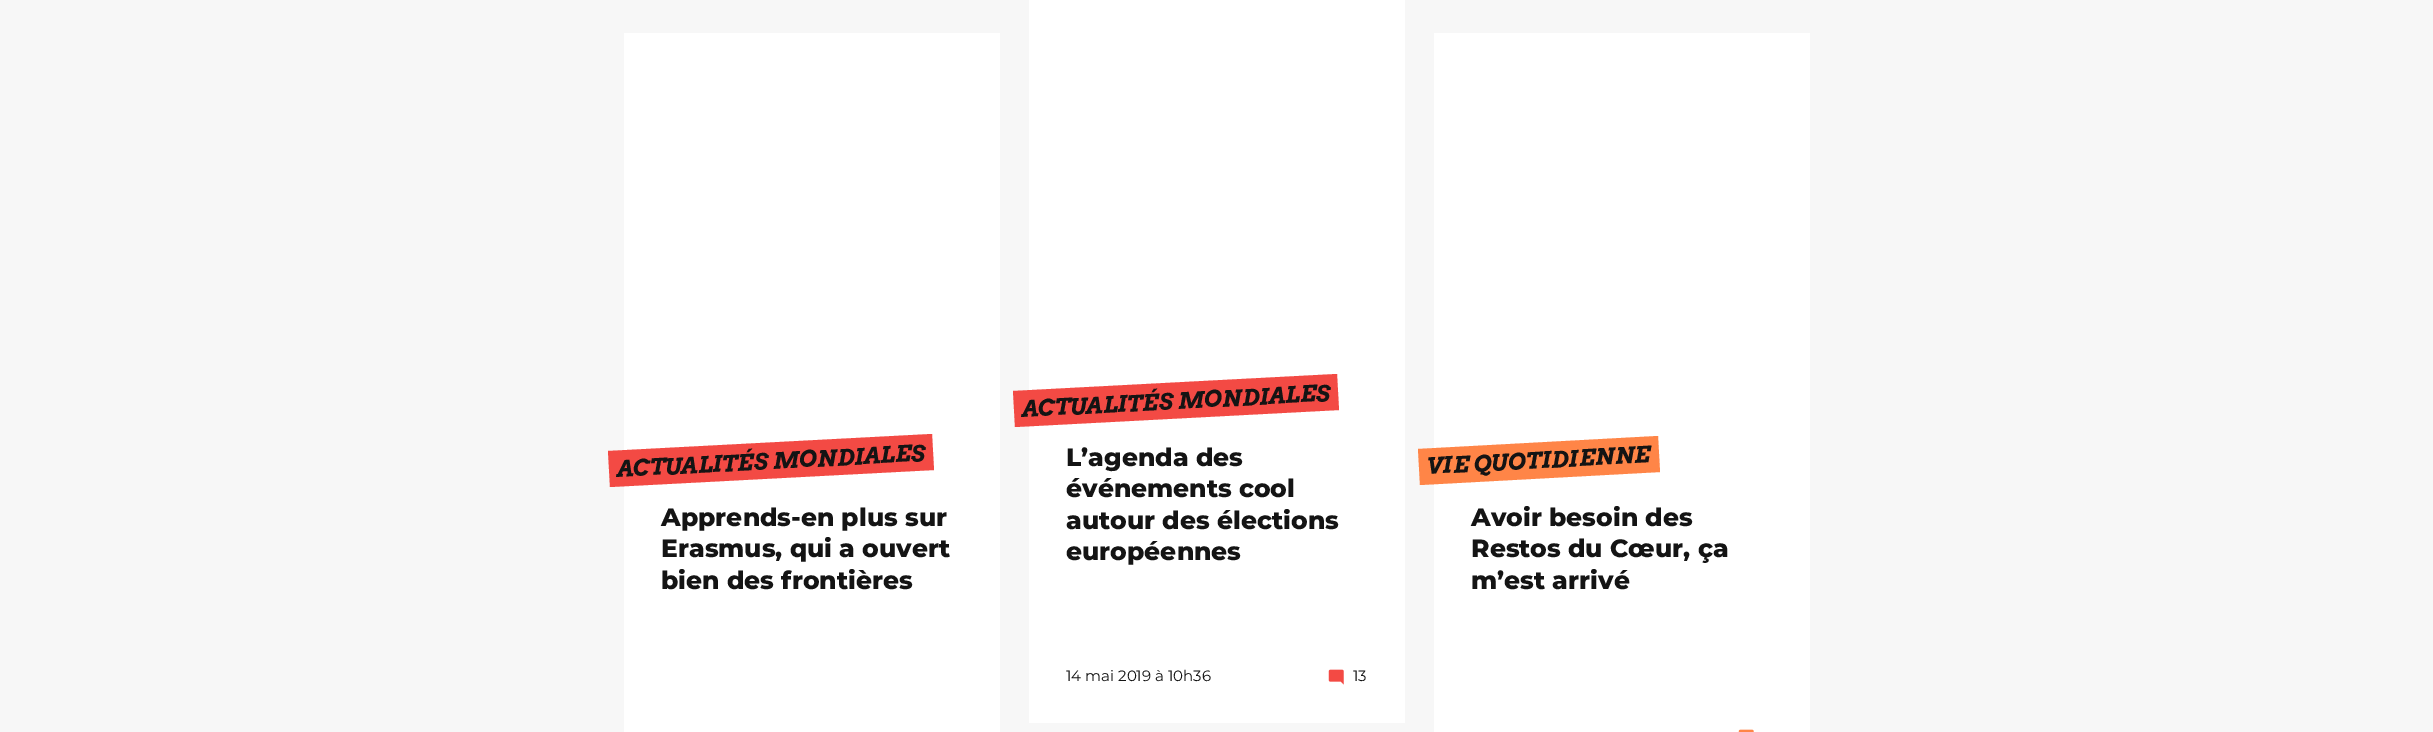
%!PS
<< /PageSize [2433 732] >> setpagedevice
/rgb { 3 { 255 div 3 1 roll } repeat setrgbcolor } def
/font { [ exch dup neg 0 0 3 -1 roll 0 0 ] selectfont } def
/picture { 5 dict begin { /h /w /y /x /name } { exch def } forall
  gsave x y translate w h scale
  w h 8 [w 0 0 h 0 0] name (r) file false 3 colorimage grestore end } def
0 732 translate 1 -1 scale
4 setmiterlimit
247 247 247 rgb
0 0 2433 732 rectfill
255 255 255 rgb
624 33 376 699 rectfill
243 74 68 rgb
608 451 moveto 932 434 lineto 934 470 lineto 610 487 lineto closepath fill
255 255 255 rgb
1029 0 376 723 rectfill
243 74 68 rgb
1013 391 moveto 1337 374 lineto 1339 410 lineto 1015 427 lineto closepath fill
(img/1.rgb) 1328 669 16 16 picture
255 255 255 rgb
1434 33 376 699 rectfill
255 133 71 rgb
1418 449 moveto 1658 436 lineto 1660 472 lineto 1420 485 lineto closepath fill
(img/2.rgb) 1738 729 16 3 picture
/Arvo-BoldItalic 22.5 font
20 20 20 rgb
gsave 617 477 translate -3 rotate 0 0 moveto (ACTUALITÉS MONDIALES) show grestore
/Montserrat-ExtraBold 25 font
[
  [(Apprends-en plus sur) 661 526]
  [(Erasmus, qui a ouvert) 661 557]
  [(bien des frontières) 661 589]
] { aload pop moveto show } forall
/Arvo-BoldItalic 22.5 font
gsave 1022 417 translate -3 rotate 0 0 moveto (ACTUALITÉS MONDIALES) show grestore
/Montserrat-ExtraBold 25 font
[
  [(L’agenda des) 1066 466]
  [(événements cool) 1066 497]
  [(autour des élections) 1066 529]
  [(européennes) 1066 560]
] { aload pop moveto show } forall
/Montserrat-Regular 15 font
1066 681 moveto (14 mai 2019 à 10h36) show
1353 681 moveto (13) show
/Arvo-BoldItalic 22.5 font
gsave 1427 474 translate -3 rotate 0 0 moveto (VIE QUOTIDIENNE) show grestore
/Montserrat-ExtraBold 25 font
[
  [(Avoir besoin des) 1471 526]
  [(Restos du Cœur, ça) 1471 557]
  [(m’est arrivé) 1471 589]
] { aload pop moveto show } forall
showpage
